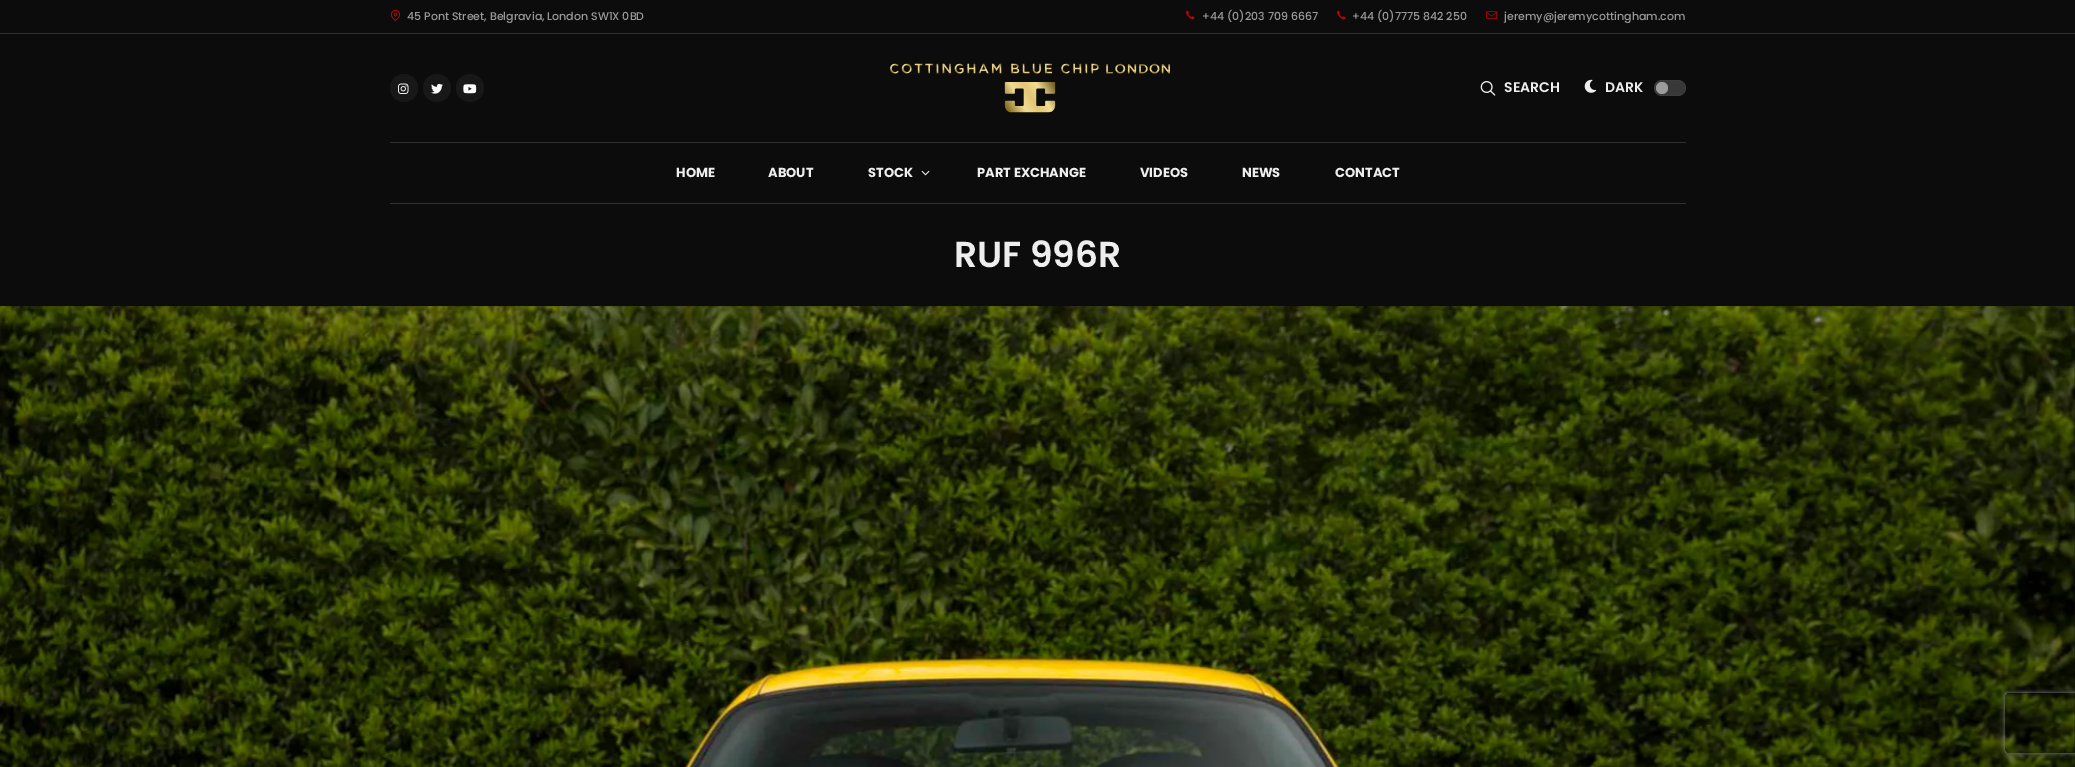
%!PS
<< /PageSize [2075 767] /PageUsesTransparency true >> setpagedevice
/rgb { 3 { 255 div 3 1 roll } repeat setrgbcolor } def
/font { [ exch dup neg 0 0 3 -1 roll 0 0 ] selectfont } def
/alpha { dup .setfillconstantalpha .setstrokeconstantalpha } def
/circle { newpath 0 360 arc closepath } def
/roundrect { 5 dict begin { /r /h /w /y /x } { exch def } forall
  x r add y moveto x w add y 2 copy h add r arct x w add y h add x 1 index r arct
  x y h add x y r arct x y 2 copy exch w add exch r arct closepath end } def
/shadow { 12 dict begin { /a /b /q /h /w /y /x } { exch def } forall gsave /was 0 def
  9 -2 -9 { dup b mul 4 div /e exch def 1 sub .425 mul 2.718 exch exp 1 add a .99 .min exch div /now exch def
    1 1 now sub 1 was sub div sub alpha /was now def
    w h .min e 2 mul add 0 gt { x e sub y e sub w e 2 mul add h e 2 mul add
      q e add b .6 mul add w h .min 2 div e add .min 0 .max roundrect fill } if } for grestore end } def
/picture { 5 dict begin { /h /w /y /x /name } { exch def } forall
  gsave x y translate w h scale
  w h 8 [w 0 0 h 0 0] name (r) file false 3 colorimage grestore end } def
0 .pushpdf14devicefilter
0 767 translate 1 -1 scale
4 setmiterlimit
12 12 12 rgb
0 0 2075 767 rectfill
48 48 48 rgb
0 33 2075 1 rectfill
(img/1.rgb) 390 9 11 12 picture
(img/2.rgb) 1186 10 9 10 picture
(img/2.rgb) 1337 10 9 10 picture
(img/3.rgb) 1486 11 11 8 picture
24 24 24 rgb
404 88 14 circle fill
(img/4.rgb) 398 83 11 11 picture
437 88 14 circle fill
(img/5.rgb) 431 83 12 11 picture
470 88 14 circle fill
(img/6.rgb) 463 84 14 10 picture
(img/7.rgb) 890 63 280 50 picture
(img/8.rgb) 1480 81 16 15 picture
(img/9.rgb) 1584 79 13 14 picture
61 61 61 rgb
1654 80 32 16 8 roundrect fill
56 56 56 rgb
1655 81 30 14 7 roundrect fill
156 156 156 rgb
1662 88 6 circle fill
48 48 48 rgb
390 142 1296 1 rectfill
390 203 1296 1 rectfill
(img/10.rgb) 921 170 9 6 picture
(img/11.rgb) 0 306 2075 461 picture
gsave
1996 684 moveto 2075 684 lineto 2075 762 lineto 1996 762 lineto closepath 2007 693 moveto 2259 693 lineto 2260 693 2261 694 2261 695 curveto 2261 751 lineto 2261 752 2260 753 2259 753 curveto 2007 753 lineto 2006 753 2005 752 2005 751 curveto 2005 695 lineto 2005 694 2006 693 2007 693 curveto closepath eoclip newpath
128 128 128 rgb
2005 693 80 60 2 2.5 1 shadow
grestore
/Poppins-Medium 11 font
153 153 153 rgb
[
  [(45 Pont Street, Belgravia, London SW1X 0BD) 407 20]
  [(+44 \(0\)203 709 6667) 1202 20]
  [(+44 \(0\)7775 842 250) 1352 20]
  [(jeremy@jeremycottingham.com) 1504 20]
] { aload pop moveto show } forall
/Poppins-SemiBold 14 font
238 238 238 rgb
1504 92 moveto (SEARCH) show
1605 92 moveto (DARK) show
/Poppins-Bold 13 font
[
  [(HOME) 676 177]
  [(ABOUT) 768 177]
  [(STOCK) 868 177]
  [(PART EXCHANGE) 977 177]
  [(VIDEOS) 1140 177]
  [(NEWS) 1242 177]
  [(CONTACT) 1335 177]
] { aload pop moveto show } forall
/Poppins-SemiBold 36 font
954 267 moveto (RUF 996R) show
.poppdf14devicefilter showpage
